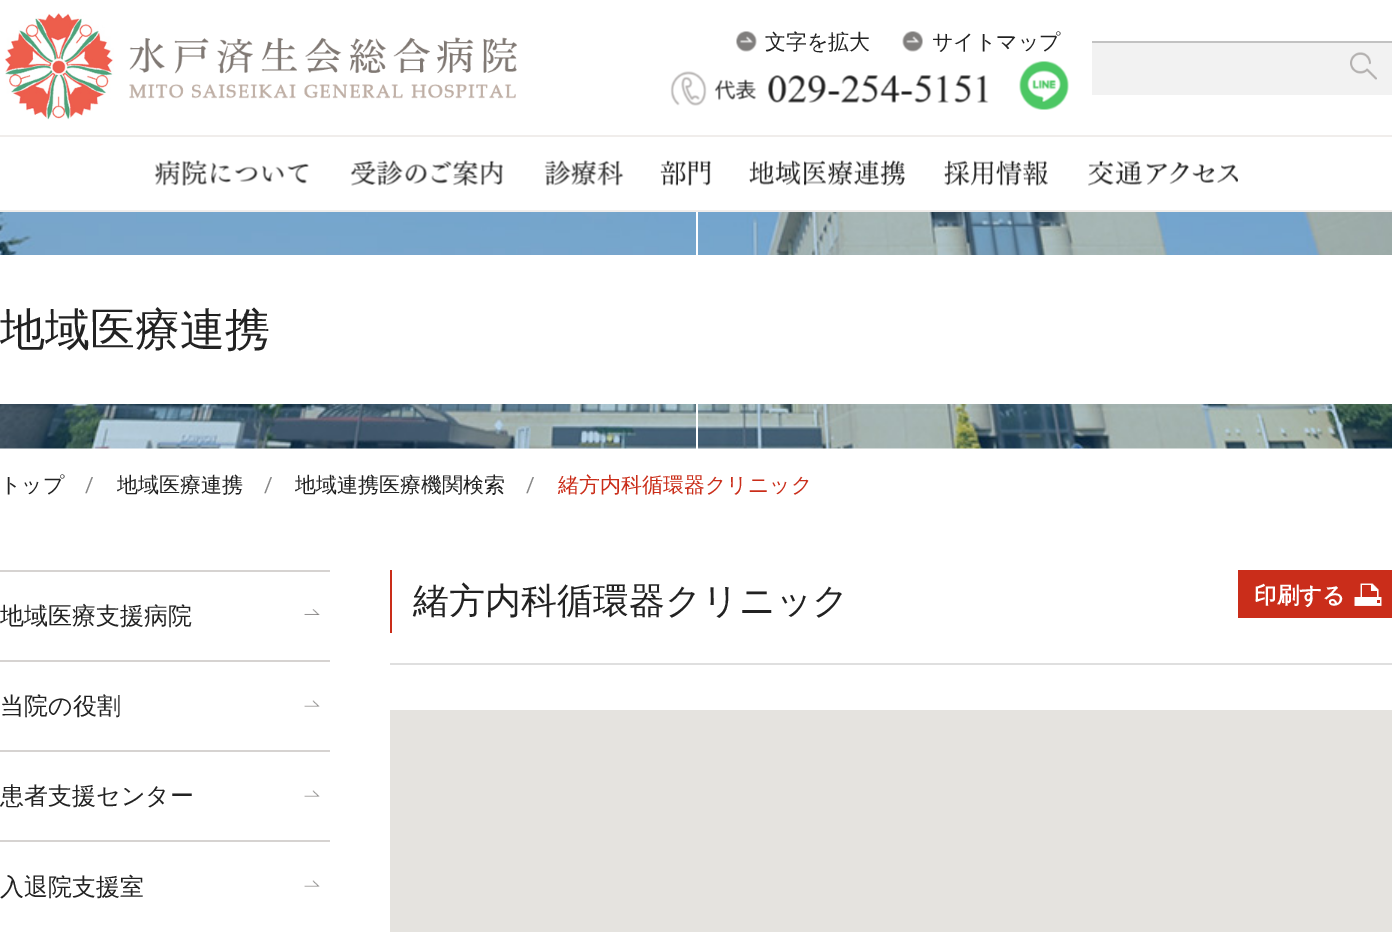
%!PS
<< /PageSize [1392 932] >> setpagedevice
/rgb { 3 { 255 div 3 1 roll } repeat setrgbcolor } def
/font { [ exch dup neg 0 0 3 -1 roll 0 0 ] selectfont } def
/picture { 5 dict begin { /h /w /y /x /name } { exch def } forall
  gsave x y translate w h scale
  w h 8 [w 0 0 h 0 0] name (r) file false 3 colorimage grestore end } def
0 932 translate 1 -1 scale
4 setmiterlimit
255 255 255 rgb
0 0 1392 932 rectfill
(img/14.rgb) 0 212 1392 237 picture
696 210 2 239 rectfill
240 237 235 rgb
0 210 1392 2 rectfill
(img/1.rgb) 5 13 512 107 picture
(img/2.rgb) 736 31 21 21 picture
(img/3.rgb) 902 31 21 21 picture
(img/4.rgb) 670 71 319 35 picture
(img/5.rgb) 1019 61 50 49 picture
242 242 242 rgb
1092 43 300 52 rectfill
194 194 194 rgb
1092 41 300 2 rectfill
(img/6.rgb) 1350 52 27 28 picture
240 237 235 rgb
0 135 1392 2 rectfill
(img/7.rgb) 154 160 155 26 picture
(img/8.rgb) 350 160 153 26 picture
(img/9.rgb) 544 160 80 26 picture
(img/10.rgb) 660 160 51 26 picture
(img/11.rgb) 749 160 156 26 picture
(img/12.rgb) 944 160 104 26 picture
(img/13.rgb) 1088 160 150 26 picture
[
  [0 255 1392 149 255 255 255]
  [0 570 330 2 214 211 209]
  [0 660 330 2 214 211 209]
] { aload pop rgb rectfill } forall
(img/15.rgb) 304 609 16 6 picture
0 750 330 2 rectfill
(img/16.rgb) 304 700 16 7 picture
0 840 330 2 rectfill
(img/16.rgb) 304 790 16 7 picture
(img/16.rgb) 304 880 16 7 picture
[
  [390 663 1002 2 223 223 223]
  [390 570 2 63 202 45 25]
  [1238 570 154 48 202 45 26]
] { aload pop rgb rectfill } forall
(img/17.rgb) 1354 583 28 23 picture
229 227 223 rgb
390 710 1002 222 rectfill
/WenQuanYiZenHei-Medium 21 font
34 34 34 rgb
765 49 moveto (文字を拡大) show
932 49 moveto (サイトマップ) show
/WenQuanYiZenHei-Medium 45 font
0 345 moveto (地域医療連携) show
/WenQuanYiZenHei-Medium 21 font
0 492 moveto (トップ) show
/Roboto-Regular 21 font
136 136 136 rgb
85 492 moveto (/) show
/WenQuanYiZenHei-Medium 21 font
34 34 34 rgb
117 492 moveto (地域医療連携) show
/Roboto-Regular 21 font
136 136 136 rgb
264 492 moveto (/) show
/WenQuanYiZenHei-Medium 21 font
34 34 34 rgb
295 492 moveto (地域連携医療機関検索) show
/Roboto-Regular 21 font
136 136 136 rgb
526 492 moveto (/) show
/WenQuanYiZenHei-Medium 21 font
202 45 25 rgb
558 492 moveto (緒方内科循環器クリニック) show
/WenQuanYiZenHei-Medium 24 font
34 34 34 rgb
[
  [(地域医療支援病院) 0 624]
  [(当院の役割) 0 714]
  [(患者支援センター) 0 804]
  [(入退院支援室) 0 895]
] { aload pop moveto show } forall
/WenQuanYiZenHei-Medium 36 font
413 613 moveto (緒方内科循環器クリニック) show
/WenQuanYiZenHei-Bold 22.5 font
255 255 255 rgb
1254 603 moveto (印刷する) show
showpage
